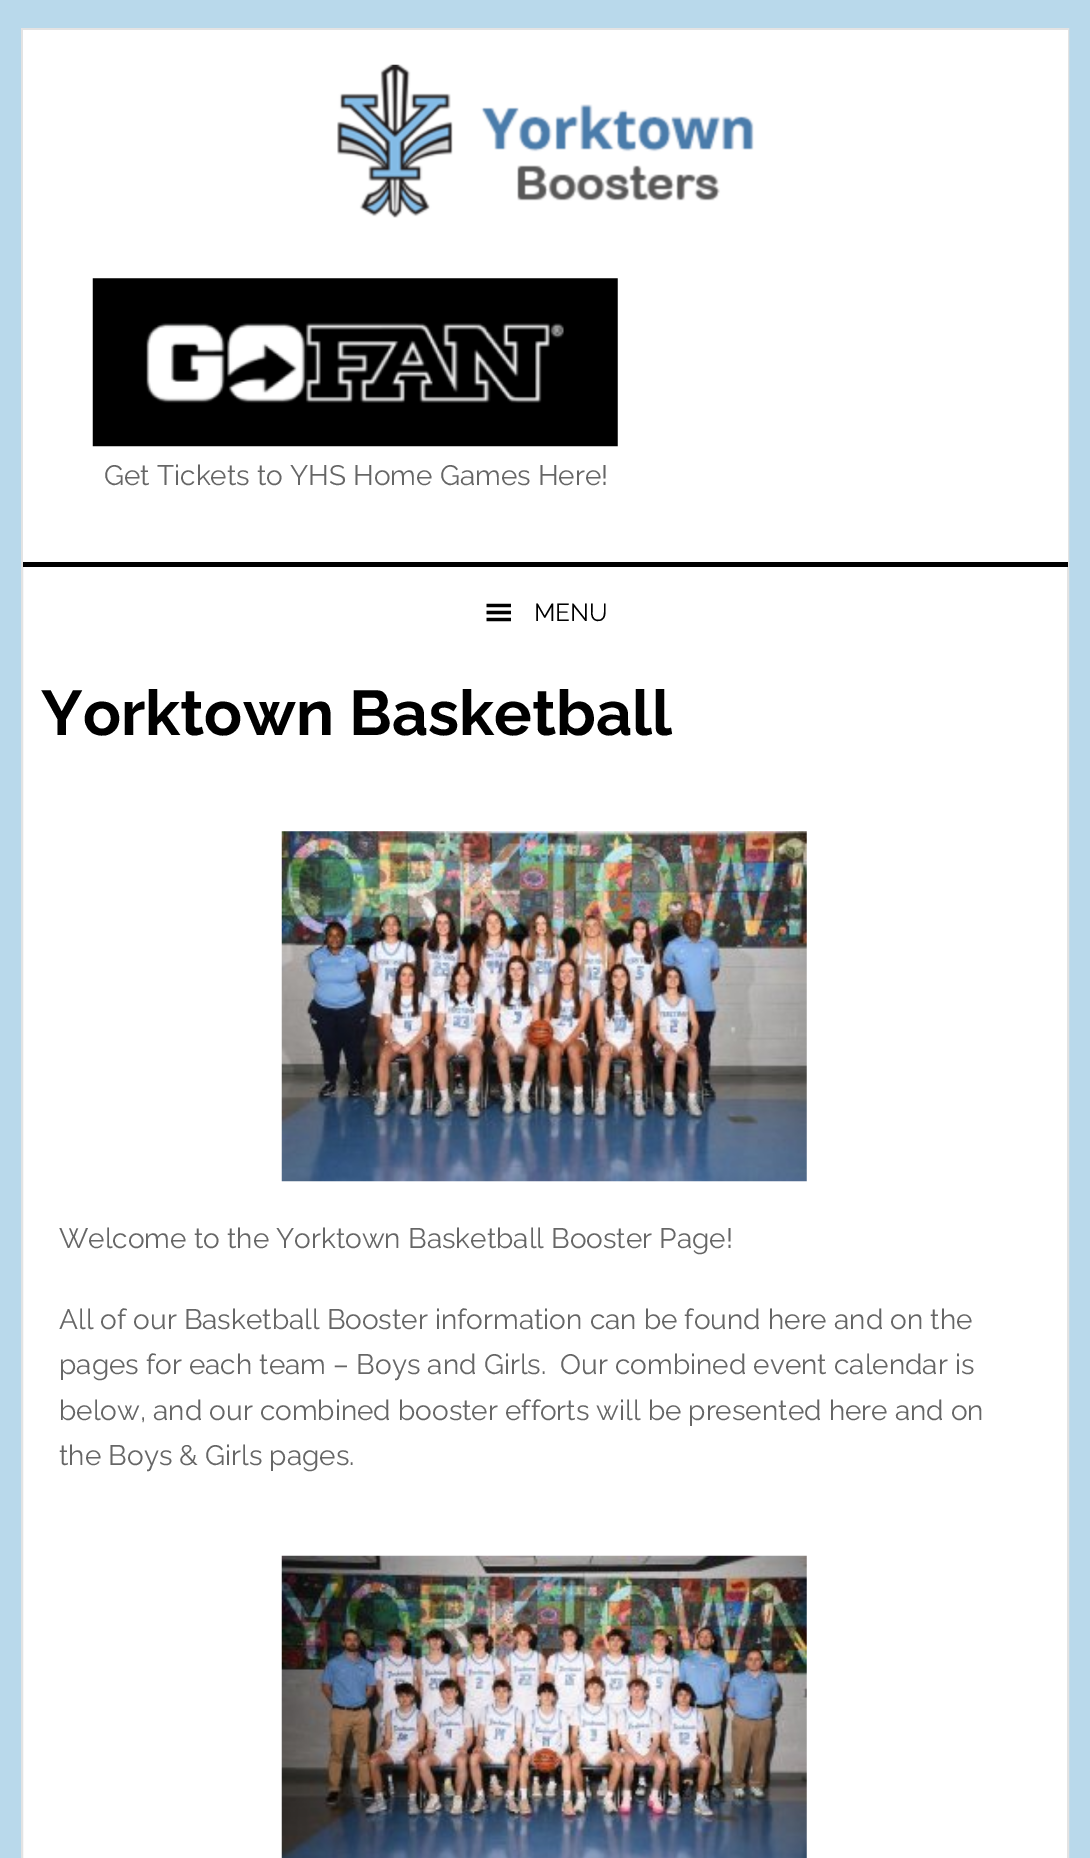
%!PS
<< /PageSize [1090 1858] >> setpagedevice
/rgb { 3 { 255 div 3 1 roll } repeat setrgbcolor } def
/font { [ exch dup neg 0 0 3 -1 roll 0 0 ] selectfont } def
/picture { 5 dict begin { /h /w /y /x /name } { exch def } forall
  gsave x y translate w h scale
  w h 8 [w 0 0 h 0 0] name (r) file false 3 colorimage grestore end } def
0 1858 translate 1 -1 scale
4 setmiterlimit
185 217 235 rgb
0 0 1090 1858 rectfill
255 255 255 rgb
23 567 1044 1291 rectfill
227 227 227 rgb
2 setlinewidth
22 29 1046 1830 rectstroke
255 255 255 rgb
23 30 1045 532 rectfill
0 0 0 rgb
23 562 1045 5 rectfill
(img/1.rgb) 337 64 417 154 picture
(img/2.rgb) 92 278 526 169 picture
(img/3.rgb) 486 603 25 19 picture
(img/4.rgb) 281 831 526 351 picture
(img/5.rgb) 281 1555 526 303 picture
/Raleway-Regular 28 font
102 102 102 rgb
104 485 moveto (Get Tickets to YHS Home Games Here!) show
/Raleway-Regular 24.5 font
0 0 0 rgb
534 621 moveto (MENU) show
/Raleway-Bold 63 font
41 735 moveto (Yorktown Basketball) show
/Raleway-Regular 28 font
102 102 102 rgb
[
  [(Welcome to the Yorktown Basketball Booster Page!) 59 1248]
  [(All of our Basketball Booster information can be found here and on the) 59 1329]
  [(pages for each team – Boys and Girls.  Our combined event calendar is) 59 1374]
  [(below, and our combined booster efforts will be presented here and on) 59 1420]
  [(the Boys & Girls pages.) 59 1465]
] { aload pop moveto show } forall
showpage
